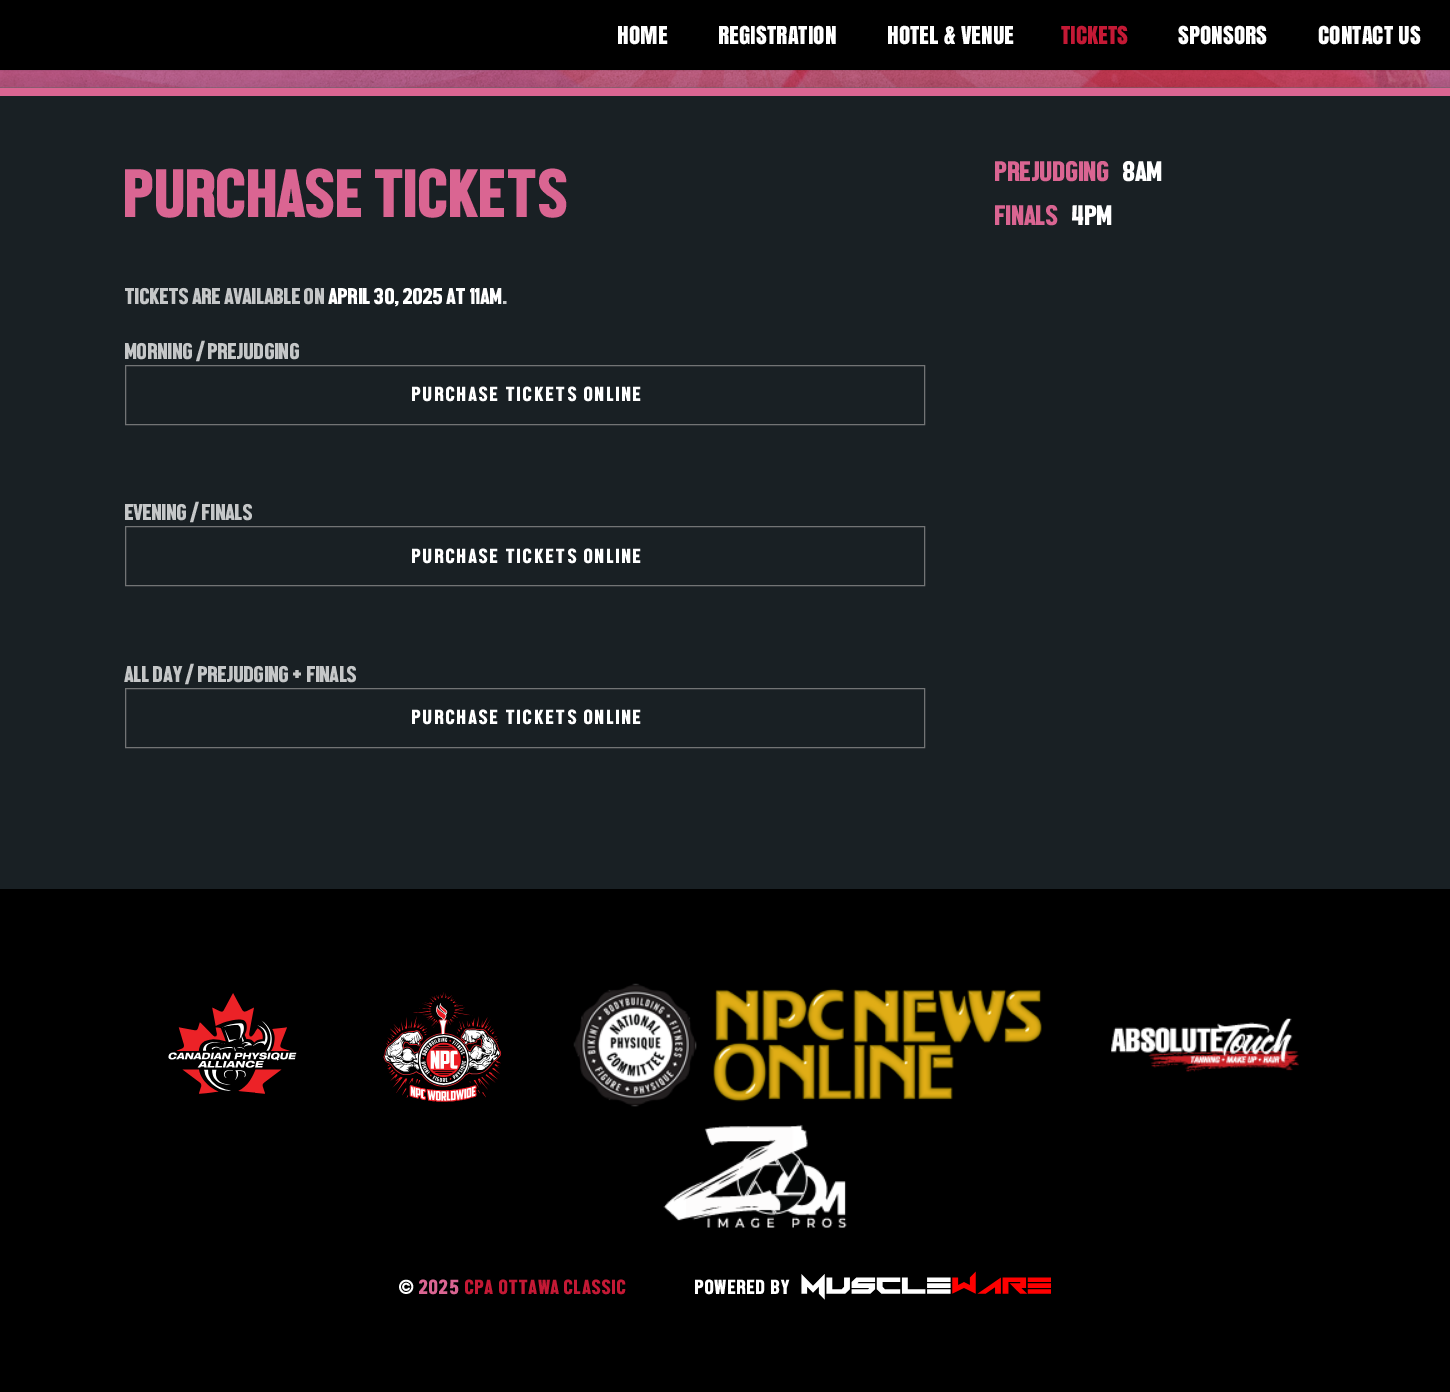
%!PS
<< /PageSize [1450 1392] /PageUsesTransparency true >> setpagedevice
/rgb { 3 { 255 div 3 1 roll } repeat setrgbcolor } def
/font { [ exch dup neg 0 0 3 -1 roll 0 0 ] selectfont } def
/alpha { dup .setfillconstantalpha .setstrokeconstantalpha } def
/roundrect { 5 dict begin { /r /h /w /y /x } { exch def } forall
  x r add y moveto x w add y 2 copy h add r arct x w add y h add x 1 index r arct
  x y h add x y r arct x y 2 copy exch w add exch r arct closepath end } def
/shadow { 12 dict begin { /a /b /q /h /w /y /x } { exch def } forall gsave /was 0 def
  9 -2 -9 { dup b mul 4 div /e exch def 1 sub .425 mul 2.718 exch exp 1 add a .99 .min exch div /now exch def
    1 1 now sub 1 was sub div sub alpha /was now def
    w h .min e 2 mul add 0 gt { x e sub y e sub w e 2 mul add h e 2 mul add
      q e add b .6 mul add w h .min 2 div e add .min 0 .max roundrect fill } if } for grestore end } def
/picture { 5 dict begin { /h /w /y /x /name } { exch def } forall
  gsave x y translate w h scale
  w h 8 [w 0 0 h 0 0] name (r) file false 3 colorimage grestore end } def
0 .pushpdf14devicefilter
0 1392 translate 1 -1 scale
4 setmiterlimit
0 0 0 rgb
0 0 1450 1392 rectfill
102 102 102 rgb
0 87 1450 1 rectfill
(img/1.rgb) 0 70 1450 18 picture
0 0 0 rgb
0 0 1450 70 0 1 0.25 shadow
25 32 36 rgb
0 96 1450 793 rectfill
218 101 146 rgb
0 88 1450 8 rectfill
114 116 117 rgb
125.5 365.5 799 59 rectstroke
125.5 526.5 799 59 rectstroke
125.5 688.5 799 59 rectstroke
(img/2.rgb) 168 993 129 101 picture
(img/3.rgb) 383 992 119 110 picture
(img/4.rgb) 573 983 469 124 picture
(img/5.rgb) 1111 1018 188 54 picture
(img/6.rgb) 663 1124 184 104 picture
(img/7.rgb) 801 1271 250 29 picture
/Anton-Regular 23.25 font
255 255 255 rgb
[
  [(HOME) 617 44]
  [(REGISTRATION) 718 44]
  [(HOTEL & VENUE) 887 44]
] { aload pop moveto show } forall
196 25 53 rgb
1061 44 moveto (TICKETS) show
255 255 255 rgb
1178 44 moveto (SPONSORS) show
1318 44 moveto (CONTACT US) show
/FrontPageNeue-Regular 70 font
218 101 146 rgb
125 217 moveto (PURCHASE TICKETS) show
/FrontPageNeue-Regular 23.25 font
197 199 200 rgb
125 304 moveto (TICKETS ARE AVAILABLE ON) show
255 255 255 rgb
329 304 moveto (APRIL 30, 2025 AT 11AM) show
197 199 200 rgb
503 304 moveto (.) show
125 359 moveto (MORNING / PREJUDGING) show
/FrontPageNeue-Regular 21 font
255 255 255 rgb
412 401 moveto 2.1 0 (PURCHASE TICKETS ONLINE) ashow
/FrontPageNeue-Regular 23.25 font
197 199 200 rgb
125 520 moveto (EVENING / FINALS) show
/FrontPageNeue-Regular 21 font
255 255 255 rgb
412 563 moveto 2.1 0 (PURCHASE TICKETS ONLINE) ashow
/FrontPageNeue-Regular 23.25 font
197 199 200 rgb
125 682 moveto (ALL DAY / PREJUDGING + FINALS) show
/FrontPageNeue-Regular 21 font
255 255 255 rgb
412 724 moveto 2.1 0 (PURCHASE TICKETS ONLINE) ashow
/FrontPageNeue-Regular 29 font
218 101 146 rgb
995 181 moveto (PREJUDGING) show
255 255 255 rgb
1123 181 moveto (8AM) show
218 101 146 rgb
995 225 moveto (FINALS) show
255 255 255 rgb
1072 225 moveto (4PM) show
/FrontPageNeue-Regular 21 font
399 1294 moveto 1 0 (©) ashow
218 101 146 rgb
419 1294 moveto 1 0 (2025) ashow
196 25 53 rgb
465 1294 moveto 1 0 (CPA OTTAWA CLASSIC) ashow
255 255 255 rgb
695 1294 moveto 1 0 (POWERED BY) ashow
.poppdf14devicefilter showpage
